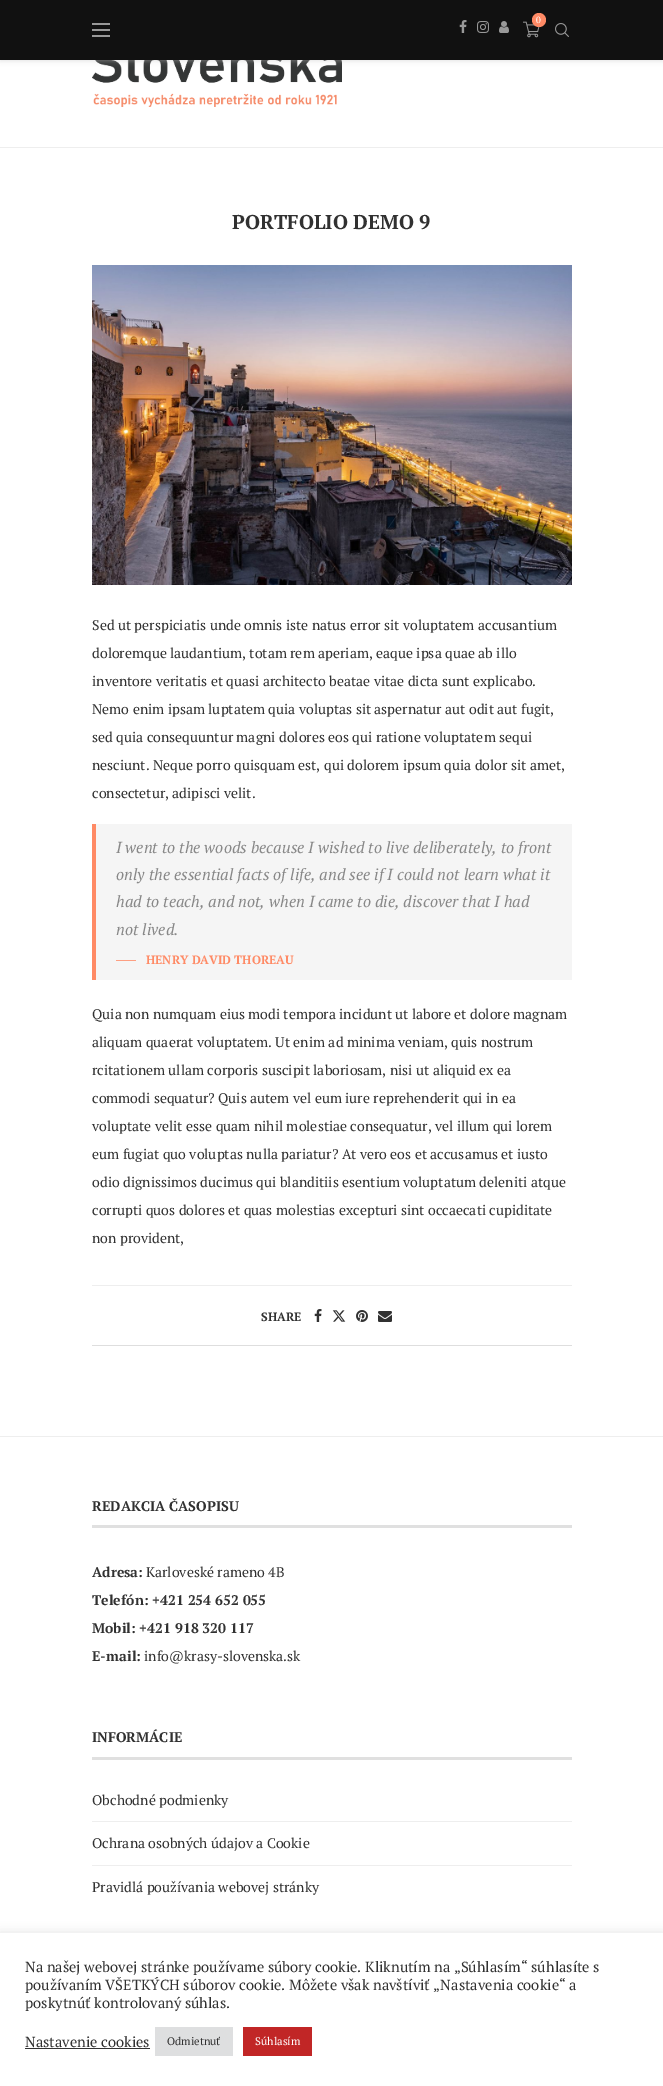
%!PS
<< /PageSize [663 2086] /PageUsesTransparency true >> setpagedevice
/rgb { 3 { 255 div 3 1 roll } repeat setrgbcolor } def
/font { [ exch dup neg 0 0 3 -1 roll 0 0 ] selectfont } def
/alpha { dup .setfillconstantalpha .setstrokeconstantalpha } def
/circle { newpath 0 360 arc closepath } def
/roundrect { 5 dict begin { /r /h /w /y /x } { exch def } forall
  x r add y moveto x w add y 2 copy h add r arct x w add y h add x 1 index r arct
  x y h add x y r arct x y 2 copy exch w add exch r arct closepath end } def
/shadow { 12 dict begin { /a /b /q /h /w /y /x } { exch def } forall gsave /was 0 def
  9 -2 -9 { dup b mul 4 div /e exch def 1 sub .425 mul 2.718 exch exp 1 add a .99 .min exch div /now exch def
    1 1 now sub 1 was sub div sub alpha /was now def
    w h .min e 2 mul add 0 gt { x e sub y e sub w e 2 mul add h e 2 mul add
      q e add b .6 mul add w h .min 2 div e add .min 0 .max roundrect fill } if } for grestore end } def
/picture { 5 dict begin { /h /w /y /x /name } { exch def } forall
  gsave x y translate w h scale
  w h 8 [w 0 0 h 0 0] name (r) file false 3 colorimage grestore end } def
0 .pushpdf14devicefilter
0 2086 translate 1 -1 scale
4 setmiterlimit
255 255 255 rgb
0 0 663 2086 rectfill
(img/6.rgb) 92 60 250 47 picture
190 190 190 rgb
0 1 663 60 0 2.5 0.46 shadow
[
  [0 0 663 60 17 17 17]
  [92 23 18 2 153 153 153]
  [92 29 18 2 153 153 153]
  [92 35 18 2 153 153 153]
] { aload pop rgb rectfill } forall
(img/1.rgb) 459 20 8 13 picture
(img/2.rgb) 477 21 12 12 picture
(img/3.rgb) 499 21 10 12 picture
(img/4.rgb) 523 21 17 17 picture
255 138 101 rgb
539 20 7 circle fill
(img/5.rgb) 555 23 14 14 picture
238 238 238 rgb
0 147 663 1 rectfill
(img/7.rgb) 92 265 480 320 picture
[
  [96 824 476 156 245 245 245]
  [92 824 4 156 255 138 101]
  [116 960 20 1 253 159 130]
  [92 1345 480 1 222 222 222]
  [92 1285 480 1 238 238 238]
] { aload pop rgb rectfill } forall
(img/8.rgb) 314 1309 8 13 picture
(img/9.rgb) 332 1310 14 12 picture
(img/10.rgb) 356 1310 12 12 picture
(img/11.rgb) 378 1311 14 11 picture
[
  [0 1436 663 1 238 238 238]
  [92 1525 480 3 224 224 224]
  [92 1757 480 3 224 224 224]
  [92 1821 480 1 238 238 238]
  [92 1865 480 1 238 238 238]
] { aload pop rgb rectfill } forall
172 171 171 rgb
0 1932 663 153 0 5 0.3 shadow
[
  [0 1933 663 153 255 255 255]
  [25 2048 125 1 51 51 51]
  [155 2027 78 29 222 223 224]
  [243 2027 69 29 193 38 38]
] { aload pop rgb rectfill } forall
/PTSerif-Regular 9 font
255 255 255 rgb
536 23 moveto (0) show
/PTSerif-Bold 20 font
49 49 49 rgb
232 229 moveto (PORTFOLIO DEMO 9) show
/PTSerif-Regular 14 font
[
  [(Sed ut perspiciatis unde omnis iste natus error sit voluptatem accusantium) 92 630]
  [(doloremque laudantium, totam rem aperiam, eaque ipsa quae ab illo) 92 658]
  [(inventore veritatis et quasi architecto beatae vitae dicta sunt explicabo.) 92 686]
  [(Nemo enim ipsam luptatem quia voluptas sit aspernatur aut odit aut fugit,) 92 714]
  [(sed quia consequuntur magni dolores eos qui ratione voluptatem sequi) 92 742]
  [(nesciunt. Neque porro quisquam est, qui dolorem ipsum quia dolor sit amet,) 92 770]
  [(consectetur, adipisci velit.) 92 798]
] { aload pop moveto show } forall
/PTSerif-Italic 16 font
136 136 136 rgb
[
  [(I went to the woods because I wished to live deliberately, to front) 116 853]
  [(only the essential facts of life, and see if I could not learn what it) 116 880]
  [(had to teach, and not, when I came to die, discover that I had) 116 907]
  [(not lived.) 116 935]
] { aload pop moveto show } forall
/PTSerif-Bold 12 font
255 138 101 rgb
146 964 moveto (HENRY DAVID THOREAU) show
/PTSerif-Regular 14 font
49 49 49 rgb
[
  [(Quia non numquam eius modi tempora incidunt ut labore et dolore magnam) 92 1019]
  [(aliquam quaerat voluptatem. Ut enim ad minima veniam, quis nostrum) 92 1047]
  [(rcitationem ullam corporis suscipit laboriosam, nisi ut aliquid ex ea) 92 1075]
  [(commodi sequatur? Quis autem vel eum iure reprehenderit qui in ea) 92 1103]
  [(voluptate velit esse quam nihil molestiae consequatur, vel illum qui lorem) 92 1131]
  [(eum fugiat quo voluptas nulla pariatur? At vero eos et accusamus et iusto) 92 1159]
  [(odio dignissimos ducimus qui blanditiis esentium voluptatum deleniti atque) 92 1187]
  [(corrupti quos dolores et quas molestias excepturi sint occaecati cupiditate) 92 1215]
  [(non provident,) 92 1243]
] { aload pop moveto show } forall
/PTSerif-Bold 12 font
261 1321 moveto (SHARE) show
/PTSerif-Bold 14 font
92 1511 moveto (REDAKCIA ČASOPISU) show
92 1577 moveto (Adresa:) show
/PTSerif-Regular 14 font
146 1577 moveto (Karloveské rameno 4B) show
/PTSerif-Bold 14 font
[
  [(Telefón: +421 254 652 055) 92 1605]
  [(Mobil: +421 918 320 117) 92 1633]
  [(E-mail:) 92 1661]
] { aload pop moveto show } forall
/PTSerif-Regular 14 font
144 1661 moveto (info@krasy-slovenska.sk) show
/PTSerif-Bold 14 font
92 1742 moveto (INFORMÁCIE) show
/PTSerif-Regular 14 font
[
  [(Obchodné podmienky) 92 1805]
  [(Ochrana osobných údajov a Cookie) 92 1848]
  [(Pravidlá používania webovej stránky) 92 1892]
] { aload pop moveto show } forall
/PTSerif-Regular 14.65 font
[
  [(Na našej webovej stránke používame súbory cookie. Kliknutím na „Súhlasím“ súhlasíte s) 25 1972]
  [(používaním VŠETKÝCH súborov cookie. Môžete však navštíviť „Nastavenia cookie“ a) 25 1990]
  [(poskytnúť kontrolovaný súhlas.) 25 2008]
  [(Nastavenie cookies) 25 2047]
] { aload pop moveto show } forall
/PTSerif-Regular 11 font
167 2045 moveto (Odmietnuť) show
255 255 255 rgb
255 2045 moveto (Súhlasím) show
.poppdf14devicefilter showpage
